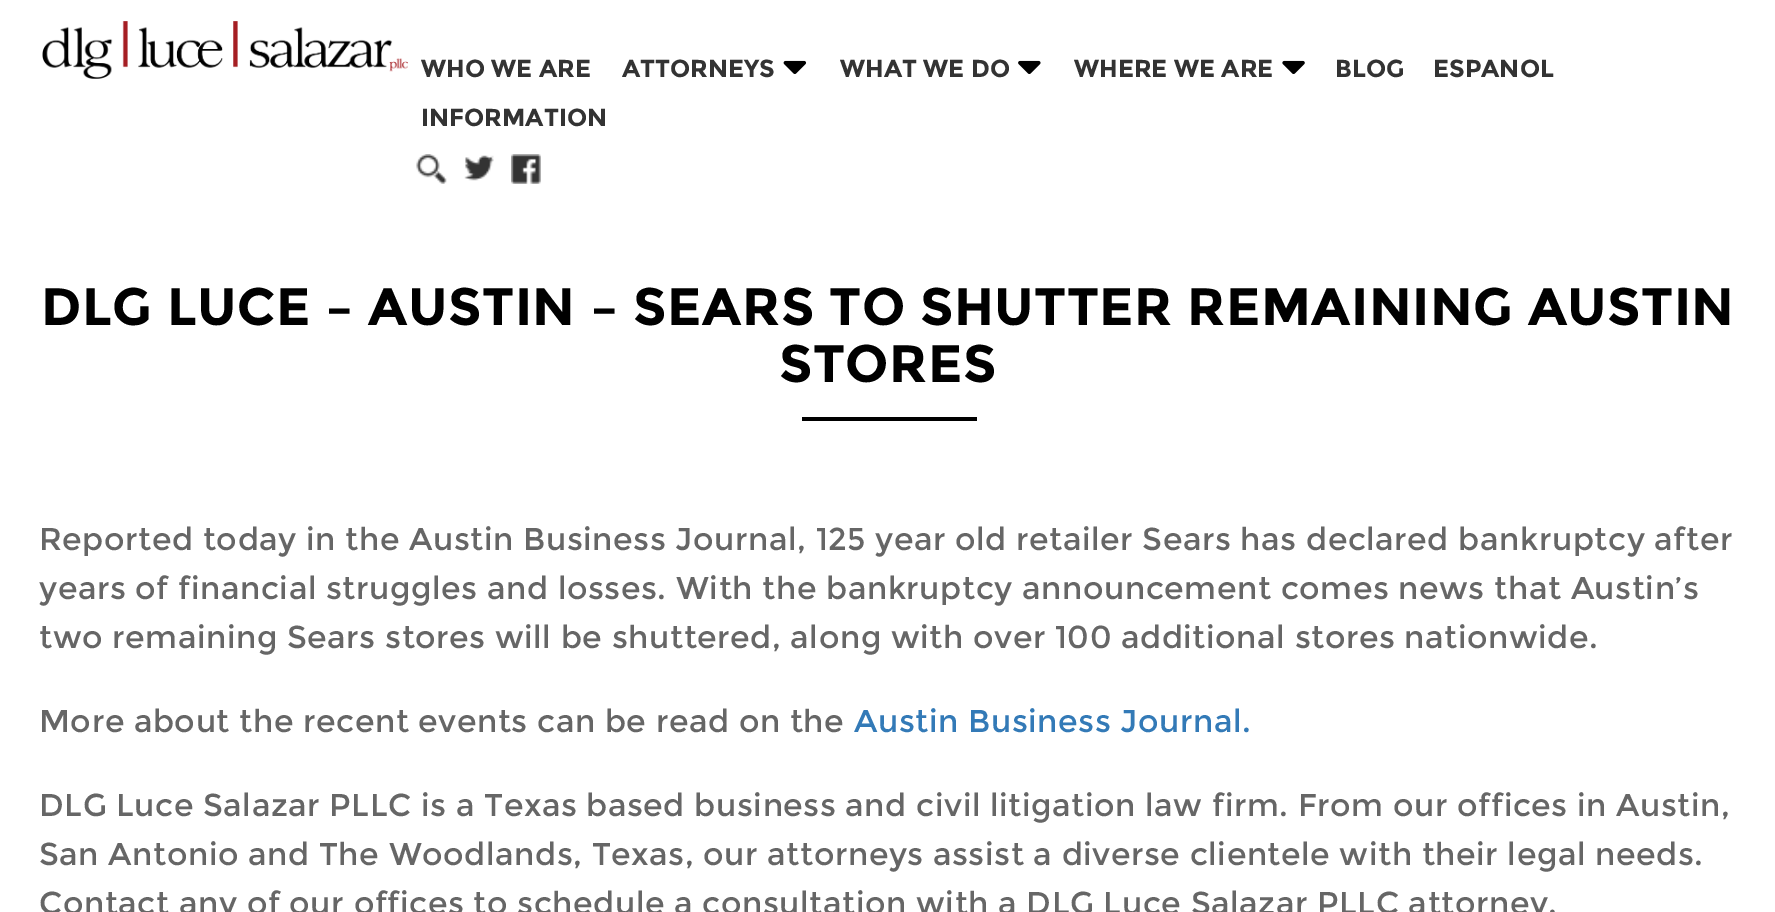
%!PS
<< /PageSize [1775 912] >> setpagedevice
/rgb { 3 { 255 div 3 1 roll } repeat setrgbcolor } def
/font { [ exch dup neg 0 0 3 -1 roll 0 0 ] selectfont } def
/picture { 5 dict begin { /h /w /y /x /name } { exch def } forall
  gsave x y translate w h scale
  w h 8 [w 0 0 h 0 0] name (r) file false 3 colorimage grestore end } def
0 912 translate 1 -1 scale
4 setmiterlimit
255 255 255 rgb
0 0 1775 912 rectfill
(img/1.rgb) 42 21 366 58 picture
(img/2.rgb) 783 60 24 14 picture
(img/3.rgb) 1018 60 23 14 picture
(img/4.rgb) 1282 60 23 14 picture
(img/5.rgb) 416 154 31 30 picture
(img/6.rgb) 464 155 30 26 picture
(img/7.rgb) 511 154 30 30 picture
0 0 0 rgb
802 417 175 4 rectfill
/Montserrat-Bold 24.5 font
51 51 51 rgb
[
  [(WHO WE ARE) 421 77]
  [(ATTORNEYS) 622 77]
  [(WHAT WE DO) 840 77]
  [(WHERE WE ARE) 1074 77]
  [(BLOG) 1335 77]
  [(ESPANOL) 1433 77]
  [(INFORMATION) 421 126]
] { aload pop moveto show } forall
/Montserrat-Bold 52.5 font
0 0 0 rgb
41 325 moveto 0.53 0 (DLG LUCE – AUSTIN – SEARS TO SHUTTER REMAINING AUSTIN) ashow
779 382 moveto 0.53 0 (STORES) ashow
/Montserrat-Regular 31.5 font
102 102 102 rgb
39 550 moveto 0.53 0 (Reported today in the Austin Business Journal, 125 year old retailer Sears has declared bankruptcy after) ashow
39 599 moveto 0.53 0 (years of financial struggles and losses. With the bankruptcy announcement comes news that Austin’s) ashow
39 648 moveto 0.53 0 (two remaining Sears stores will be shuttered, along with over 100 additional stores nationwide.) ashow
39 732 moveto 0.53 0 (More about the recent events can be read on the) ashow
51 122 183 rgb
854 732 moveto 0.53 0 (Austin Business Journal.) ashow
102 102 102 rgb
39 816 moveto 0.53 0 (DLG Luce Salazar PLLC is a Texas based business and civil litigation law firm. From our offices in Austin,) ashow
39 865 moveto 0.53 0 (San Antonio and The Woodlands, Texas, our attorneys assist a diverse clientele with their legal needs.) ashow
39 914 moveto 0.53 0 (Contact any of our offices to schedule a consultation with a DLG Luce Salazar PLLC attorney.) ashow
showpage
